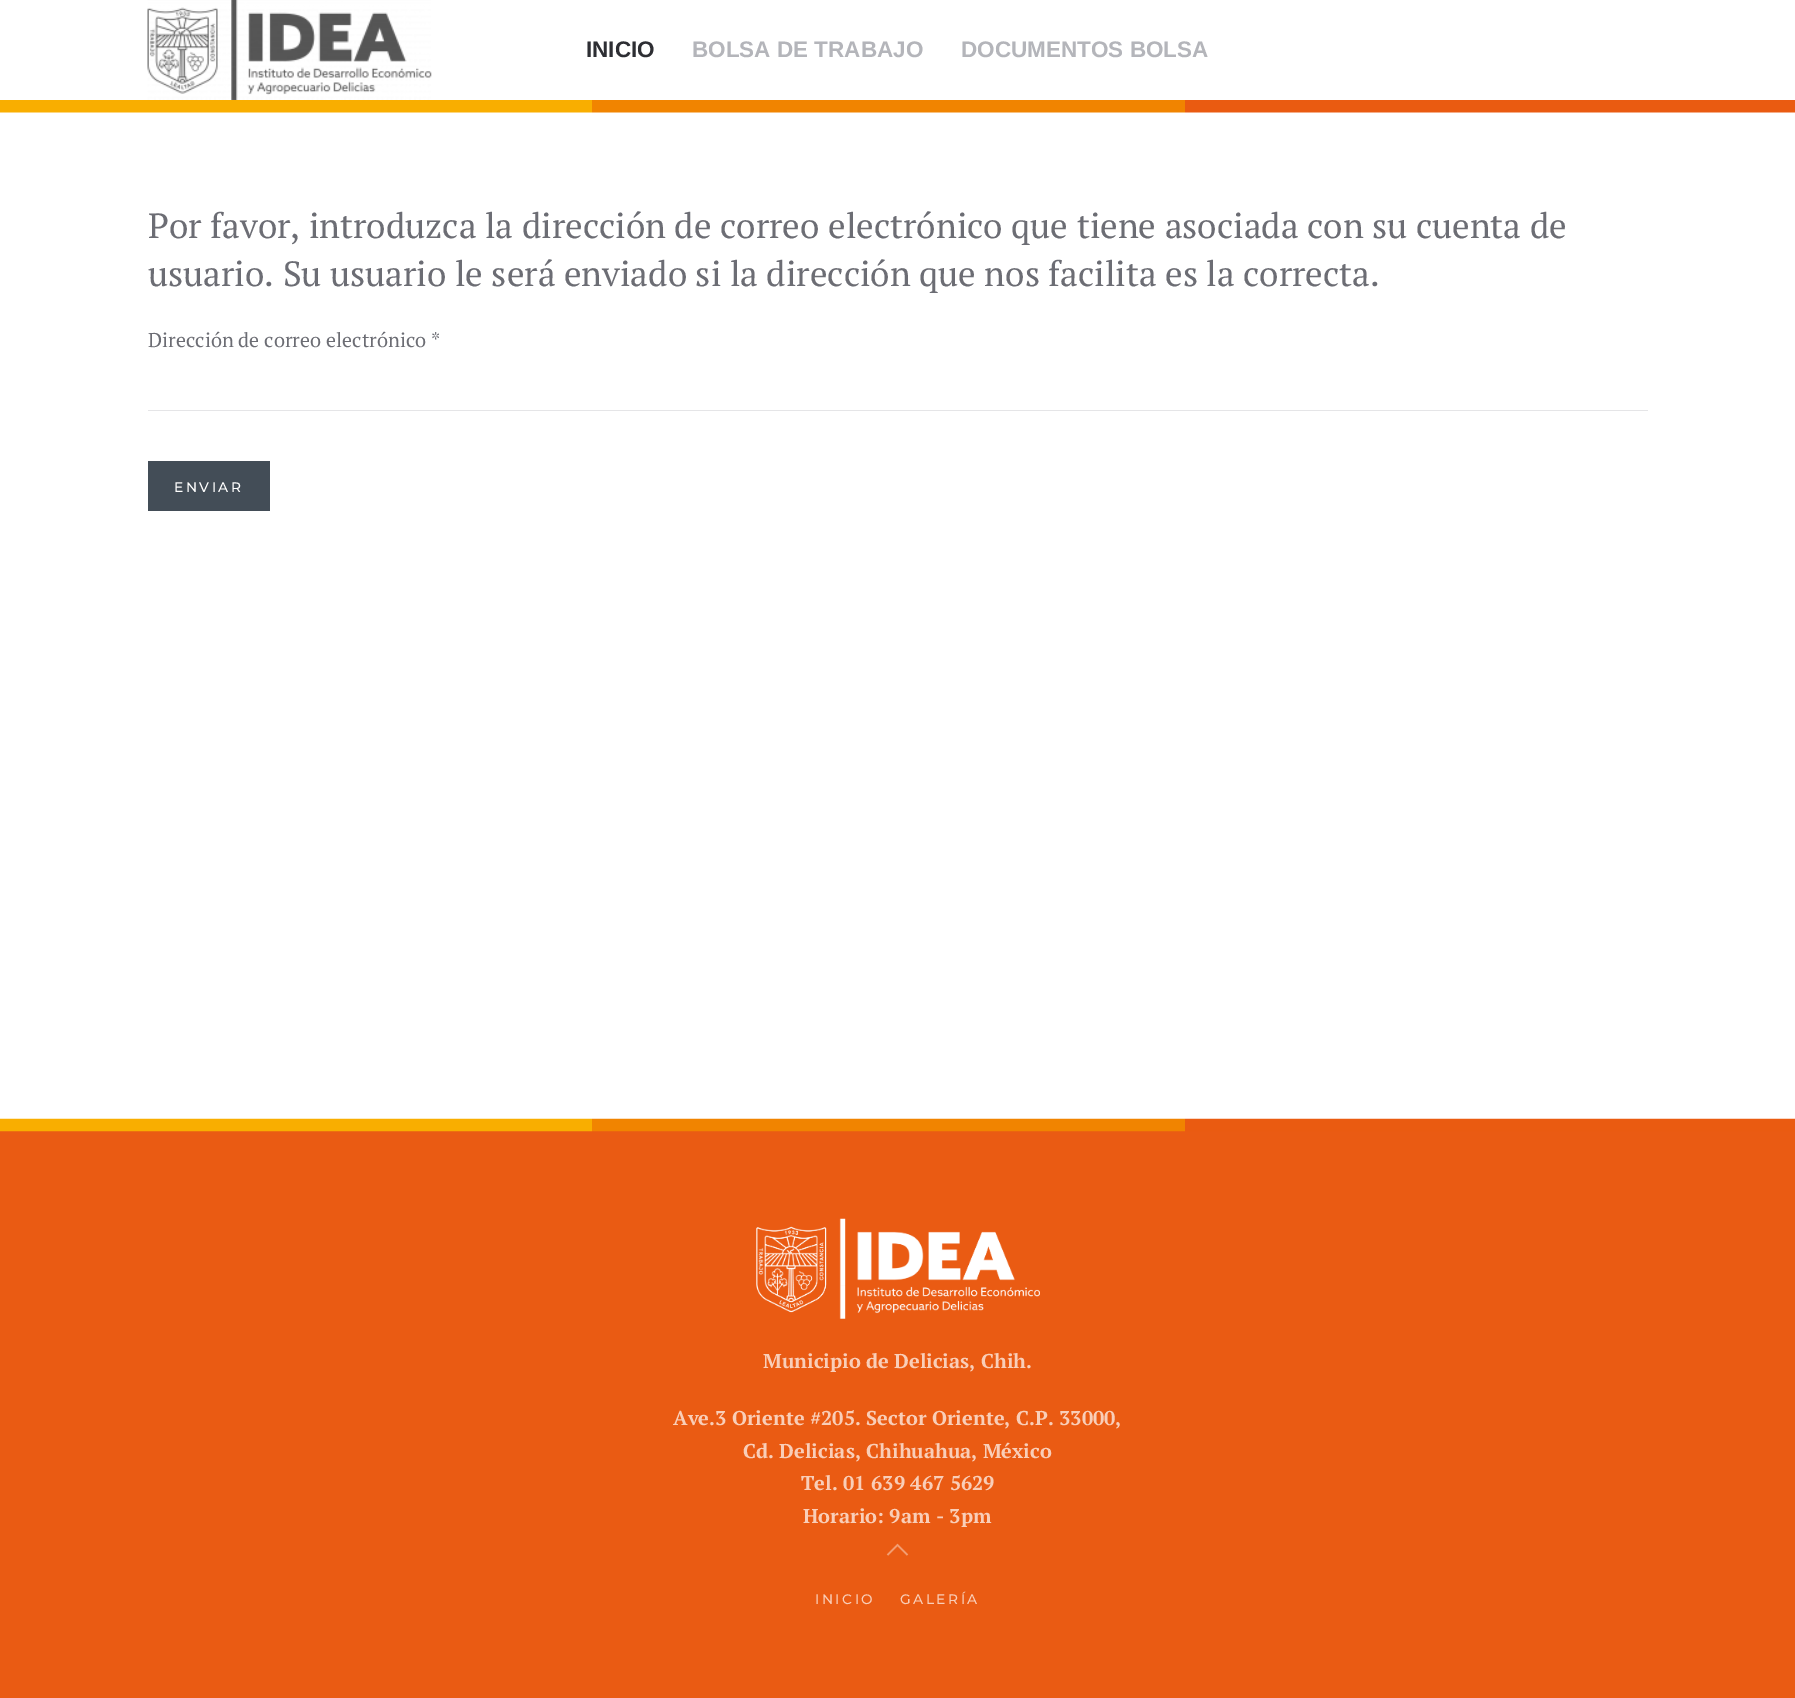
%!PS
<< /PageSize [1795 1698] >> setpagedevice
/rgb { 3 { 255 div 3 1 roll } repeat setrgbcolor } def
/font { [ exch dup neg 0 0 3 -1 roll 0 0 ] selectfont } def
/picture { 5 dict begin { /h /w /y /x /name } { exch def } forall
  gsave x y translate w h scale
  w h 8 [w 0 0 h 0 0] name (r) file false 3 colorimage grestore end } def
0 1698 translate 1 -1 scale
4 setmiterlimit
255 255 255 rgb
0 0 1795 1698 rectfill
(img/1.rgb) 147 0 285 100 picture
(img/2.rgb) 0 100 1795 13 picture
[
  [148 410 1500 1 229 229 231]
  [148 461 122 50 67 77 87]
  [0 1131 1795 567 234 91 19]
] { aload pop rgb rectfill } forall
(img/3.rgb) 0 1118 1795 14 picture
(img/4.rgb) 756 1218 284 101 picture
242 157 113 rgb
1.5 setlinewidth
887.5 1555 moveto 897.5 1545 lineto 907.5 1555 lineto stroke
/LiberationSans-Bold 22.5 font
45 46 51 rgb
586 57 moveto (INICIO) show
180 181 186 rgb
692 57 moveto (BOLSA DE TRABAJO) show
961 57 moveto (DOCUMENTOS BOLSA) show
/PTSerif-Regular 35 font
108 109 116 rgb
148 238 moveto (Por favor, introduzca la dirección de correo electrónico que tiene asociada con su cuenta de) show
148 286 moveto (usuario. Su usuario le será enviado si la dirección que nos facilita es la correcta.) show
/PTSerif-Regular 20 font
148 347 moveto (Dirección de correo electrónico *) show
/Montserrat-Thin 13.75 font
255 255 255 rgb
174 492 moveto 2.5 0 (ENVIAR) ashow
/PTSerif-Bold 20 font
249 206 184 rgb
[
  [(Municipio de Delicias, Chih.) 763 1368]
  [(Ave.3 Oriente #205. Sector Oriente, C.P. 33000,) 673 1425]
  [(Cd. Delicias, Chihuahua, México) 743 1458]
  [(Tel. 01 639 467 5629) 801 1490]
  [(Horario: 9am - 3pm) 803 1523]
] { aload pop moveto show } forall
/Montserrat-Thin 13.75 font
815 1604 moveto 2.5 0 (INICIO) ashow
900 1604 moveto 2.5 0 (GALERÍA) ashow
showpage
